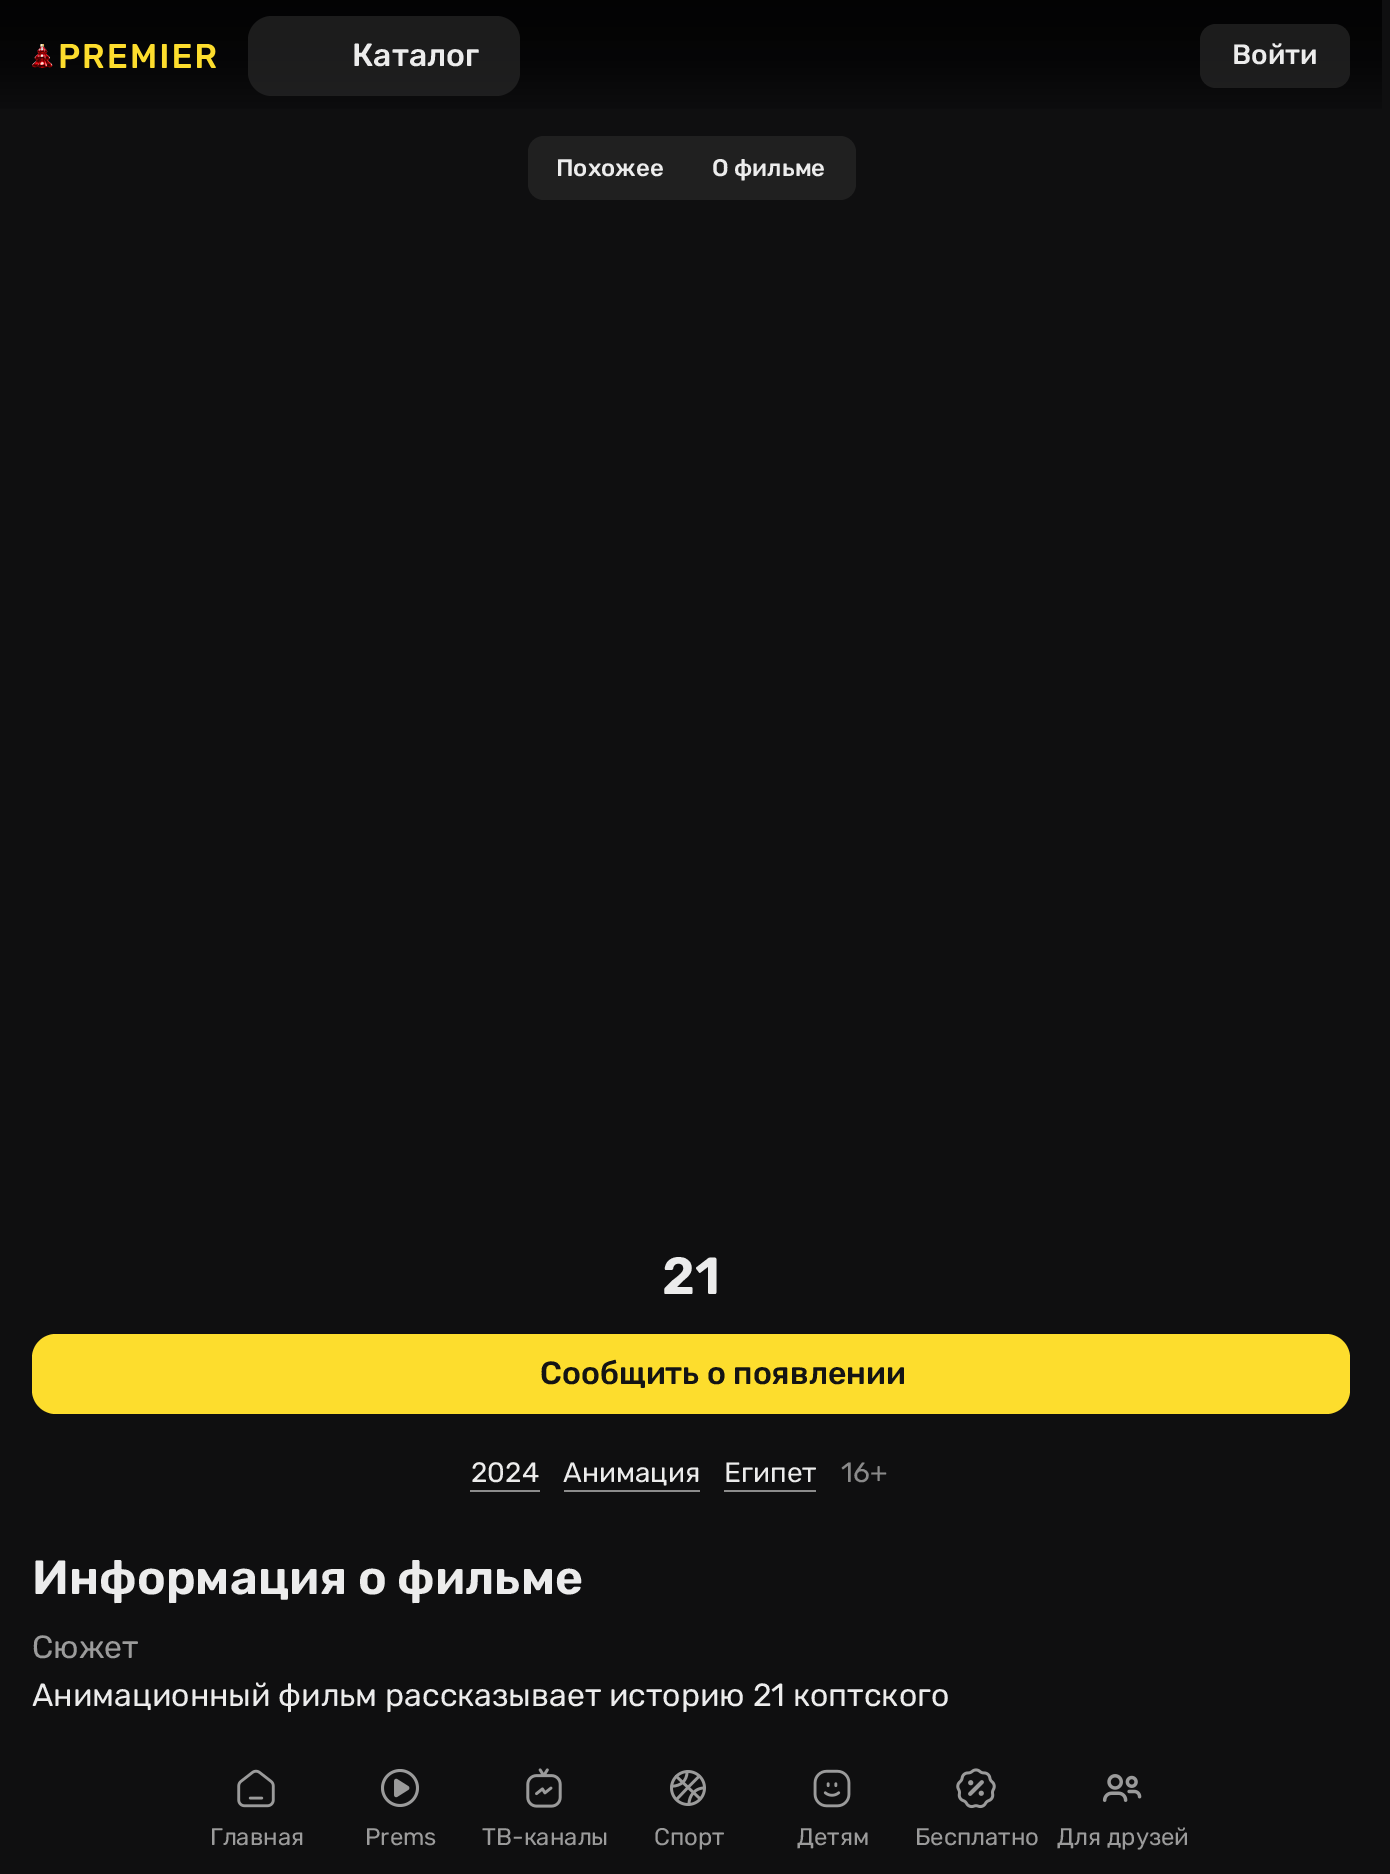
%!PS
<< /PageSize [1390 1874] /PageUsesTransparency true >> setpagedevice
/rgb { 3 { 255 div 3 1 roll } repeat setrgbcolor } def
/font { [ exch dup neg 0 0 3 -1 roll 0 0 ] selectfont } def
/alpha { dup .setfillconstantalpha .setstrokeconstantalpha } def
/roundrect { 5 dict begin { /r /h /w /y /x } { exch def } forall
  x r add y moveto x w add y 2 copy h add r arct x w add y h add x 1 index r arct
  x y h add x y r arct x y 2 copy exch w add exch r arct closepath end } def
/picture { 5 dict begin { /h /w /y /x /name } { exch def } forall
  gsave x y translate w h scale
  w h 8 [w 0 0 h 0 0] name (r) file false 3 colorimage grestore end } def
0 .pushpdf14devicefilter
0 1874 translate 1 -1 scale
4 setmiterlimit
15 15 16 rgb
0 0 1390 1874 rectfill
gsave 0 0 moveto 1382 0 lineto 1382 109 lineto 0 109 lineto closepath clip newpath
<< /ShadingType 2 /ColorSpace /DeviceRGB /Coords [691 -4 691 112] /Extend [true true] /Function << /FunctionType 3 /Domain [0 1] /Functions [<< /FunctionType 2 /Domain [0 1] /C0 [0.012 0.012 0.012] /C1 [0.012 0.012 0.016] /N 1 >> << /FunctionType 2 /Domain [0 1] /C0 [0.012 0.012 0.016] /C1 [0.016 0.016 0.016] /N 1 >> << /FunctionType 2 /Domain [0 1] /C0 [0.016 0.016 0.016] /C1 [0.02 0.02 0.024] /N 1 >> << /FunctionType 2 /Domain [0 1] /C0 [0.02 0.02 0.024] /C1 [0.027 0.027 0.031] /N 1 >> << /FunctionType 2 /Domain [0 1] /C0 [0.027 0.027 0.031] /C1 [0.039 0.039 0.043] /N 1 >> << /FunctionType 2 /Domain [0 1] /C0 [0.039 0.039 0.043] /C1 [0.051 0.051 0.055] /N 1 >>] /Bounds [0.15 0.32 0.47 0.64 0.82] /Encode [0 1 0 1 0 1 0 1 0 1 0 1] >> >> shfill grestore
(img/1.rgb) 32 44 184 24 picture
0.65 alpha
41 41 41 rgb
248 16 272 80 24 roundrect fill
1200 24 150 64 16 roundrect fill
1 alpha
32 32 32 rgb
528 136 328 64 16 roundrect fill
253 221 45 rgb
32 1334 1318 80 24 roundrect fill
[
  [470 1490 70 2 140 140 140]
  [564 1490 136 2 140 140 140]
  [724 1490 92 2 140 140 140]
] { aload pop rgb rectfill } forall
(img/2.rgb) 237 1769 38 39 picture
(img/3.rgb) 381 1769 38 38 picture
(img/4.rgb) 526 1768 36 40 picture
(img/5.rgb) 670 1770 36 36 picture
(img/6.rgb) 813 1769 38 39 picture
(img/7.rgb) 956 1768 40 41 picture
(img/8.rgb) 1102 1774 40 28 picture
/Rubik-Medium 32 font
236 236 236 rgb
352 66 moveto (Каталог) show
/Rubik-Medium 28 font
1232 64 moveto (Войти) show
/Rubik-Medium 24 font
556 176 moveto (Похожее) show
712 176 moveto (О фильме) show
/Rubik-SemiBold 52 font
662 1294 moveto (21) show
/Rubik-Medium 32 font
20 20 20 rgb
540 1384 moveto (Сообщить о появлении) show
/Rubik-Regular 28 font
236 236 236 rgb
[
  [(2024) 471 1482]
  [(Анимация) 563 1482]
  [(Египет) 724 1482]
] { aload pop moveto show } forall
138 138 138 rgb
841 1482 moveto (16+) show
/Rubik-SemiBold 48 font
236 236 236 rgb
32 1594 moveto (Информация о фильме) show
/Rubik-Regular 32 font
155 155 155 rgb
32 1658 moveto (Сюжет) show
236 236 236 rgb
32 1706 moveto (Анимационный фильм рассказывает историю 21 коптского) show
/Rubik-Regular 24 font
155 155 155 rgb
[
  [(Главная) 210 1845]
  [(Prems) 365 1845]
  [(ТВ-каналы) 482 1845]
  [(Спорт) 654 1845]
  [(Детям) 797 1845]
  [(Бесплатно) 915 1845]
  [(Для друзей) 1057 1845]
] { aload pop moveto show } forall
.poppdf14devicefilter showpage
